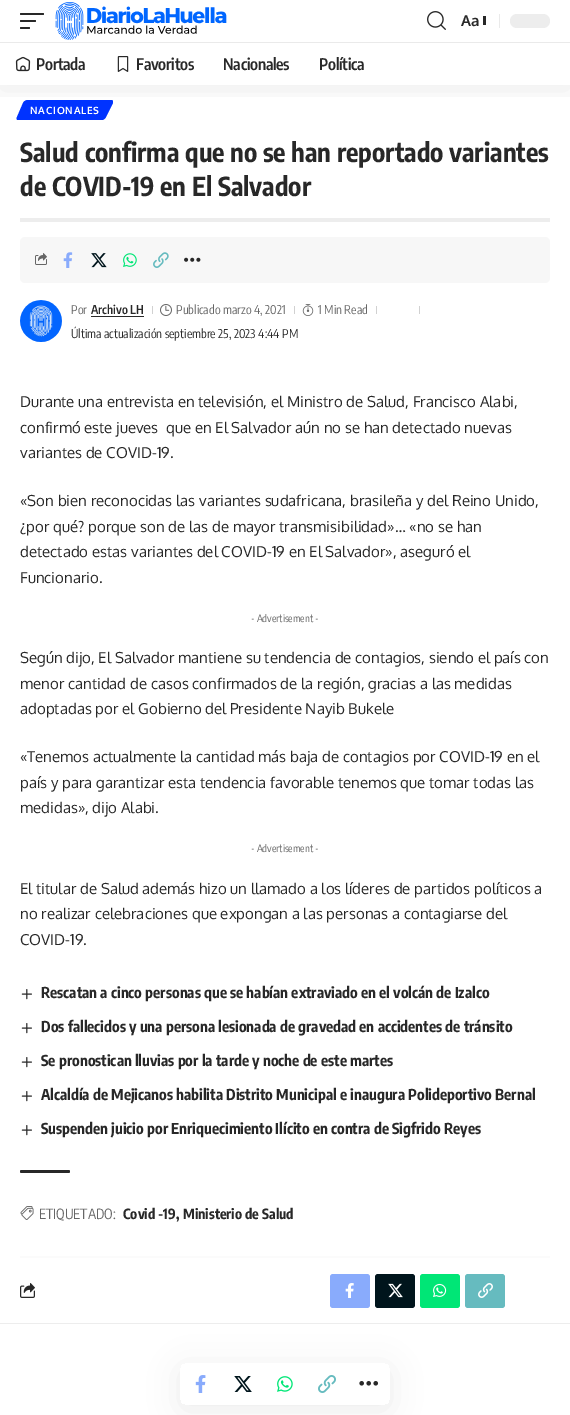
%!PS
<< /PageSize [570 1415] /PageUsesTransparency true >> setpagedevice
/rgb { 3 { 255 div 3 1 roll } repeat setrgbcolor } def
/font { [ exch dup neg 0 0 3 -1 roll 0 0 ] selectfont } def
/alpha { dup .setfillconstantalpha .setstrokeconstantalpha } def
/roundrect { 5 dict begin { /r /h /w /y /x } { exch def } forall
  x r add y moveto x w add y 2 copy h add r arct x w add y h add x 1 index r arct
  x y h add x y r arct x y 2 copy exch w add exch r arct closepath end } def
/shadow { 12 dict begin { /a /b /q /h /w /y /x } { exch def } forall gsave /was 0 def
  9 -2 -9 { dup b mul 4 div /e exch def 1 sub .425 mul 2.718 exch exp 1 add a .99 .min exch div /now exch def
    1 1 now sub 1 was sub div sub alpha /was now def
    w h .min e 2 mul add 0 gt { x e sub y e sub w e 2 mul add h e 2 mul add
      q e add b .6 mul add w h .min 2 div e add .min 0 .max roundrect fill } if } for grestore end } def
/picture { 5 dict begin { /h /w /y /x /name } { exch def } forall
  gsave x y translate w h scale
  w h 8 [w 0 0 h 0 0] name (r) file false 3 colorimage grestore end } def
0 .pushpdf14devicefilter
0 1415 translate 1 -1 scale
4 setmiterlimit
255 255 255 rgb
0 0 570 1415 rectfill
0 51 255 rgb
28 100 moveto 111 100 lineto 113 100 113 101 113 103 curveto 106 117 lineto 105 119 103 120 102 120 curveto 18 120 lineto 17 120 16 119 17 117 curveto 23 103 lineto 24 101 26 100 28 100 curveto closepath fill
gsave
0 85 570 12 rectclip
0 0 0 rgb
0 4 570 85 0 15 0.07 shadow
grestore
40 40 40 rgb
20 13 24 2 1 roundrect fill
20 20 16 2 1 roundrect fill
20 27 10 2 1 roundrect fill
(img/1.rgb) 55 2 172 38 picture
(img/2.rgb) 427 11 19 19 picture
483 16 3 9 rectfill
234 234 234 rgb
499 14 1 14 rectfill
237 237 237 rgb
510 14 40 14 7 roundrect fill
234 234 234 rgb
0 42 570 1 rectfill
(img/3.rgb) 15 56 16 16 picture
(img/4.rgb) 117 56 12 16 picture
237 237 237 rgb
20 218 530 4 rectfill
247 247 247 rgb
20 237 530 46 5 roundrect fill
(img/5.rgb) 35 253 12 12 picture
(img/6.rgb) 63 252 10 16 picture
(img/7.rgb) 91 253 16 15 picture
(img/8.rgb) 123 253 14 14 picture
(img/9.rgb) 153 252 16 16 picture
(img/10.rgb) 184 257 17 5 picture
(img/11.rgb) 20 300 42 42 picture
40 40 40 rgb
91 316 53 1 rectfill
209 209 209 rgb
152 306 1 8 rectfill
(img/12.rgb) 160 304 12 12 picture
294 306 1 8 rectfill
(img/13.rgb) 302 304 12 12 picture
376 306 1 8 rectfill
419 306 1 8 rectfill
(img/14.rgb) 21 989 11 11 picture
(img/14.rgb) 21 1023 11 11 picture
(img/14.rgb) 21 1057 11 11 picture
(img/14.rgb) 21 1091 11 11 picture
(img/14.rgb) 21 1125 11 11 picture
40 40 40 rgb
20 1170 50 3 1.5 roundrect fill
(img/15.rgb) 20 1206 14 14 picture
237 237 237 rgb
0 1323 570 1 rectfill
gsave
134 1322 moveto 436 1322 lineto 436 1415 lineto 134 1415 lineto closepath 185 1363 moveto 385 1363 lineto 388 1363 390 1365 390 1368 curveto 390 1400 lineto 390 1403 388 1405 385 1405 curveto 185 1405 lineto 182 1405 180 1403 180 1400 curveto 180 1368 lineto 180 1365 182 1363 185 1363 curveto closepath eoclip newpath
0 0 0 rgb
180 1368 210 42 5 15 0.07 shadow
grestore
(img/16.rgb) 195 1375 11 18 picture
(img/17.rgb) 234 1376 18 16 picture
(img/18.rgb) 277 1376 16 16 picture
(img/19.rgb) 318 1375 18 18 picture
(img/20.rgb) 359 1381 20 5 picture
251 251 251 rgb
20 1256 530 2 rectfill
(img/21.rgb) 20 1283 15 15 picture
137 171 252 rgb
330 1274 40 34 3 roundrect fill
(img/22.rgb) 345 1283 9 15 picture
0 21 28 rgb
375 1274 40 34 3 roundrect fill
(img/23.rgb) 388 1283 15 15 picture
0 230 118 rgb
420 1274 40 34 3 roundrect fill
(img/24.rgb) 433 1283 14 14 picture
102 187 191 rgb
465 1274 40 34 3 roundrect fill
(img/25.rgb) 478 1283 15 15 picture
/Oxygen-Bold 15 font
40 40 40 rgb
461 26 moveto (Aa) show
/EncodeSansCondensed-SemiBold 16 font
36 70 moveto -0.25 0 (Portada) ashow
136 70 moveto -0.25 0 (Favoritos) ashow
223 70 moveto -0.25 0 (Nacionales) ashow
319 70 moveto -0.25 0 (Política) ashow
/Oxygen-Bold 10 font
255 255 255 rgb
30 114 moveto 0.75 0 (NACIONALES) ashow
/EncodeSansCondensed-Bold 26 font
40 40 40 rgb
20 162 moveto (Salud confirma que no se han reportado variantes) show
20 196 moveto (de COVID-19 en El Salvador) show
/EncodeSansCondensed-Regular 12 font
102 102 102 rgb
71 314 moveto (Por) show
/EncodeSansCondensed-SemiBold 12 font
40 40 40 rgb
91 314 moveto (Archivo LH) show
/EncodeSansCondensed-Regular 12 font
102 102 102 rgb
176 314 moveto (Publicado marzo 4, 2021) show
318 314 moveto (1 Min Read) show
40 40 40 rgb
71 338 moveto (Última actualización septiembre 25, 2023 4:44 PM) show
/Oxygen-Regular 15 font
[
  [(Durante una entrevista en televisión, el Ministro de Salud, Francisco Alabi,) 20 407]
  [(confirmó este jueves  que en El Salvador aún no se han detectado nuevas) 20 433]
  [(variantes de COVID-19.) 20 458]
  [(«Son bien reconocidas las variantes sudafricana, brasileña y del Reino Unido,) 20 506]
  [(¿por qué? porque son de las de mayor transmisibilidad»… «no se han) 20 532]
  [(detectado estas variantes del COVID-19 en El Salvador», aseguró el) 20 557]
  [(Funcionario.) 20 583]
] { aload pop moveto show } forall
/EncodeSansCondensed-Regular 10 font
102 102 102 rgb
251 622 moveto (- Advertisement -) show
/Oxygen-Regular 15 font
40 40 40 rgb
[
  [(Según dijo, El Salvador mantiene su tendencia de contagios, siendo el país con) 20 663]
  [(menor cantidad de casos confirmados de la región, gracias a las medidas) 20 689]
  [(adoptadas por el Gobierno del Presidente Nayib Bukele) 20 714]
  [(«Tenemos actualmente la cantidad más baja de contagios por COVID-19 en el) 20 762]
  [(país y para garantizar esta tendencia favorable tenemos que tomar todas las) 20 788]
  [(medidas», dijo Alabi.) 20 813]
] { aload pop moveto show } forall
/EncodeSansCondensed-Regular 10 font
102 102 102 rgb
251 852 moveto (- Advertisement -) show
/Oxygen-Regular 15 font
40 40 40 rgb
[
  [(El titular de Salud además hizo un llamado a los líderes de partidos políticos a) 20 894]
  [(no realizar celebraciones que expongan a las personas a contagiarse del) 20 919]
  [(COVID-19.) 20 945]
] { aload pop moveto show } forall
/EncodeSansCondensed-Bold 15 font
[
  [(Rescatan a cinco personas que se habían extraviado en el volcán de Izalco) 41 998]
  [(Dos fallecidos y una persona lesionada de gravedad en accidentes de tránsito) 41 1032]
  [(Se pronostican lluvias por la tarde y noche de este martes) 41 1066]
  [(Alcaldía de Mejicanos habilita Distrito Municipal e inaugura Polideportivo Bernal) 41 1100]
  [(Suspenden juicio por Enriquecimiento Ilícito en contra de Sigfrido Reyes) 41 1134]
] { aload pop moveto show } forall
/EncodeSansCondensed-Regular 14 font
102 102 102 rgb
39 1219 moveto (ETIQUETADO:) show
/EncodeSansCondensed-Bold 14 font
40 40 40 rgb
123 1219 moveto (Covid -19,) show
183 1219 moveto (Ministerio de Salud) show
.poppdf14devicefilter showpage
